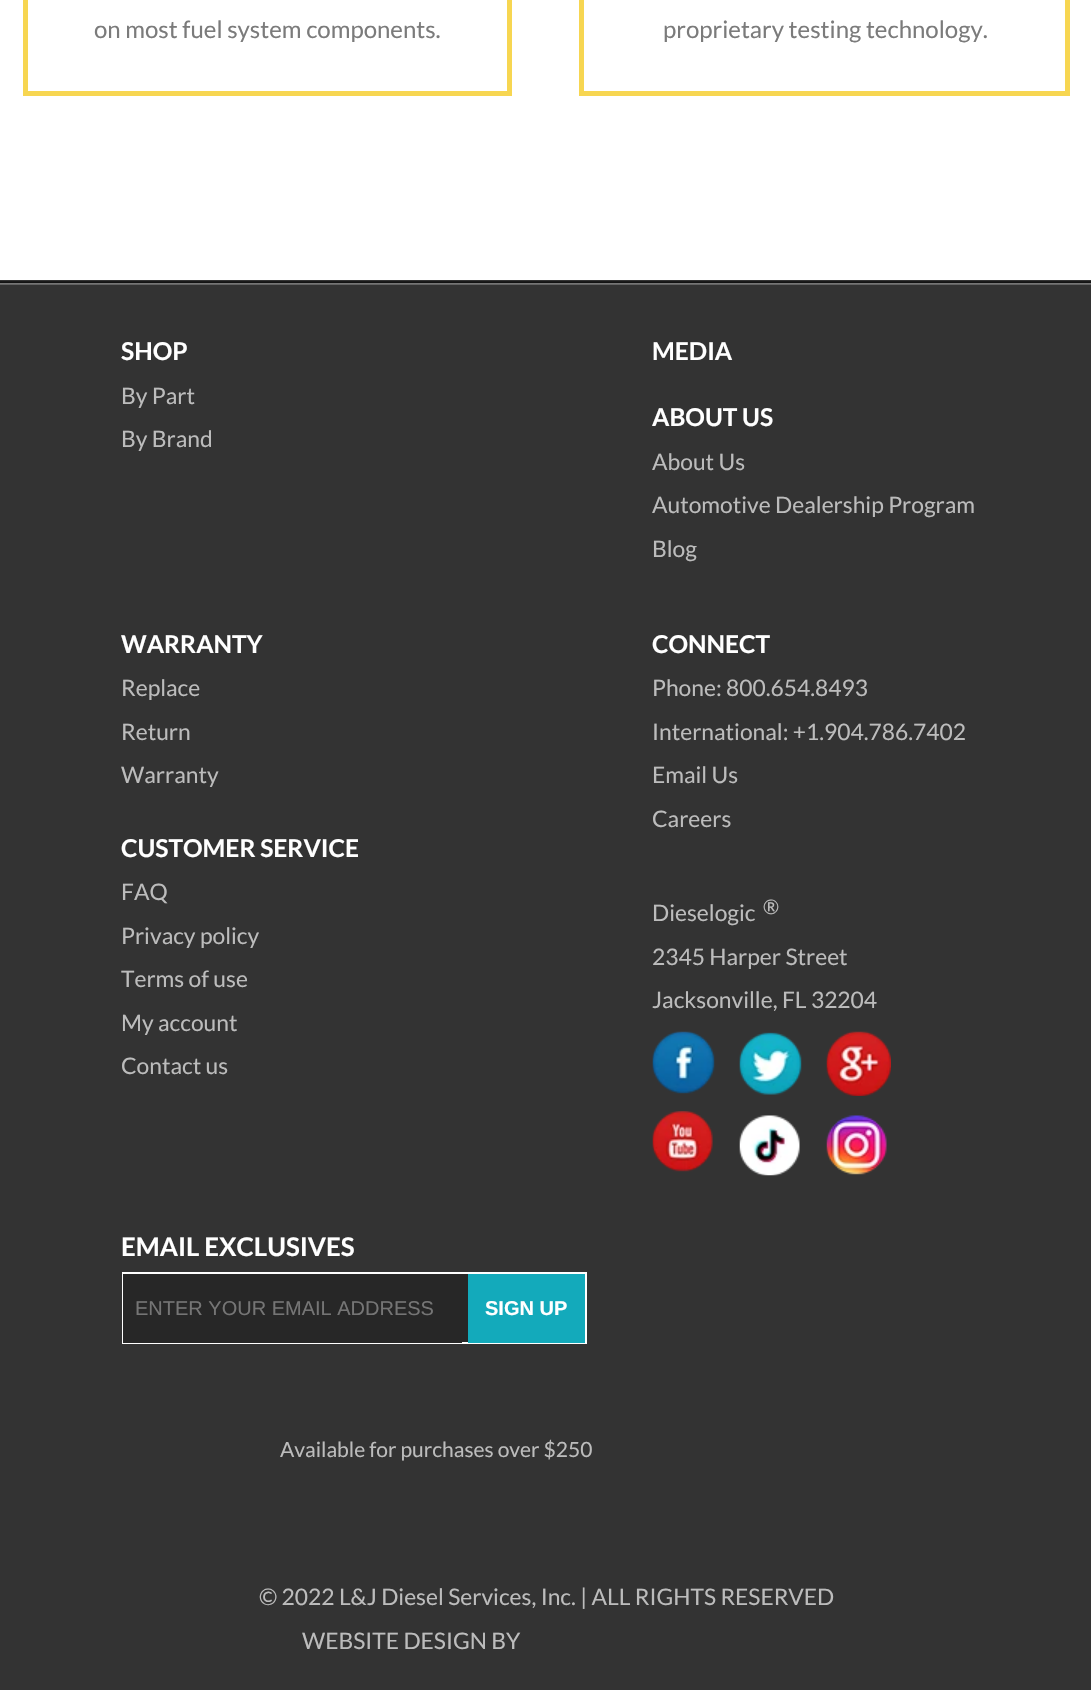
void draw(SkCanvas* canvas) {
	SkPaint fill;
	fill.setAntiAlias(true);
	auto makeFont = [&](const char* family, int weight, float size, bool italic = false) {
		SkFontStyle style(weight, SkFontStyle::kNormal_Width,
			italic ? SkFontStyle::kItalic_Slant : SkFontStyle::kUpright_Slant);
		SkFont result(fontMgr->matchFamilyStyle(family, style), size);
		result.setSubpixel(true);
		return result;
	};
	auto text = [&](const char* s, float x, float y, const SkFont& font) {
		canvas->drawString(s, x, y, font, fill);
	};
	auto box = [&](float l, float t, float r, float b) {
		canvas->drawRect(SkRect::MakeLTRB(l, t, r, b), fill);
	};
	auto picture = [&](const char* path, float l, float t, float r, float b) {
		auto image = SkImages::DeferredFromEncodedData(SkData::MakeFromFileName(path));
		canvas->drawImageRect(image, SkRect::MakeLTRB(l, t, r, b), SkSamplingOptions());
	};
	canvas->clear(0xFFFFFFFF);
	fill.setStyle(SkPaint::kStroke_Style);
	fill.setStrokeWidth(5);
	fill.setColor(0xFFF7D651);
	canvas->drawRect(SkRect::MakeLTRB(25.5f, -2.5f, 509.5f, 93.5f), fill);
	canvas->drawRect(SkRect::MakeLTRB(581.5f, -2.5f, 1067.5f, 93.5f), fill);
	fill.setStyle(SkPaint::kFill_Style);
	fill.setColor(0xFF333333);
	box(0, 284, 1091, 1690);
	picture("image0.png", 0, 280, 1091, 285);
	picture("image1.png", 652, 1031, 715, 1094);
	picture("image2.png", 739, 1032, 802, 1095);
	picture("image3.png", 826, 1031, 891, 1096);
	picture("image4.png", 652, 1111, 713, 1172);
	picture("image5.png", 739, 1115, 800, 1176);
	picture("image6.png", 826, 1115, 887, 1175);
	fill.setColor(0xFF272727);
	box(462, 1274, 468, 1342);
	fill.setStyle(SkPaint::kStroke_Style);
	fill.setStrokeWidth(2);
	fill.setColor(0xFFFFFFFF);
	canvas->drawRect(SkRect::MakeLTRB(123, 1273, 586, 1343), fill);
	fill.setStyle(SkPaint::kFill_Style);
	fill.setColor(0xFF272727);
	box(123, 1274, 462, 1343);
	fill.setColor(0xFF13AABB);
	box(468, 1274, 585, 1343);
	auto font1 = makeFont("Lato", 400, 24);
	fill.setColor(0xFF7B7B7B);
	text("on most fuel system components.", 94, 38, font1);
	text("proprietary testing technology.", 663, 38, font1);
	auto font2 = makeFont("Lato", 700, 24.5f);
	fill.setColor(0xFFFFFFFF);
	text("SHOP", 121, 360, font2);
	auto font3 = makeFont("Lato", 400, 22.8f);
	fill.setColor(0xFFBCBCBC);
	text("By Part", 121, 404, font3);
	text("By Brand", 121, 447, font3);
	fill.setColor(0xFFFFFFFF);
	text("MEDIA", 652, 360, font2);
	text("ABOUT US", 652, 426, font2);
	fill.setColor(0xFFBCBCBC);
	text("About Us", 652, 470, font3);
	text("Automotive Dealership Program", 652, 513, font3);
	text("Blog", 652, 557, font3);
	fill.setColor(0xFFFFFFFF);
	text("WARRANTY", 121, 653, font2);
	fill.setColor(0xFFBCBCBC);
	text("Replace", 121, 696, font3);
	text("Return", 121, 740, font3);
	text("Warranty", 121, 783, font3);
	fill.setColor(0xFFFFFFFF);
	text("CUSTOMER SERVICE", 121, 857, font2);
	fill.setColor(0xFFBCBCBC);
	text("FAQ", 121, 900, font3);
	text("Privacy policy", 121, 944, font3);
	text("Terms of use", 121, 987, font3);
	text("My account", 121, 1031, font3);
	text("Contact us", 121, 1074, font3);
	fill.setColor(0xFFFFFFFF);
	text("CONNECT", 652, 653, font2);
	fill.setColor(0xFFBCBCBC);
	text("Phone: 800.654.8493", 652, 696, font3);
	text("International: +1.904.786.7402", 652, 740, font3);
	text("Email Us", 652, 783, font3);
	text("Careers", 652, 827, font3);
	text("Dieselogic", 652, 921, font3);
	auto font4 = makeFont("Lato", 400, 20);
	text("®", 763, 914, font4);
	text("2345 Harper Street", 652, 965, font3);
	text("Jacksonville, FL 32204", 652, 1008, font3);
	auto font5 = makeFont("Lato", 700, 25.75f);
	fill.setColor(0xFFFFFFFF);
	text("EMAIL EXCLUSIVES", 121, 1256, font5);
	auto font6 = makeFont("Liberation Sans", 400, 20);
	fill.setColor(0xFF757575);
	text("ENTER YOUR EMAIL ADDRESS", 135, 1315, font6);
	auto font7 = makeFont("Liberation Sans", 700, 20);
	fill.setColor(0xFFFFFFFF);
	text("SIGN UP", 485, 1315, font7);
	auto font8 = makeFont("Lato", 400, 21);
	fill.setColor(0xFFBCBCBC);
	text("Available for purchases over $250", 280, 1457, font8);
	text("© 2022 L&J Diesel Services, Inc. | ALL RIGHTS RESERVED", 259, 1605, font3);
	text("WEBSITE DESIGN BY", 302, 1649, font3);
}
